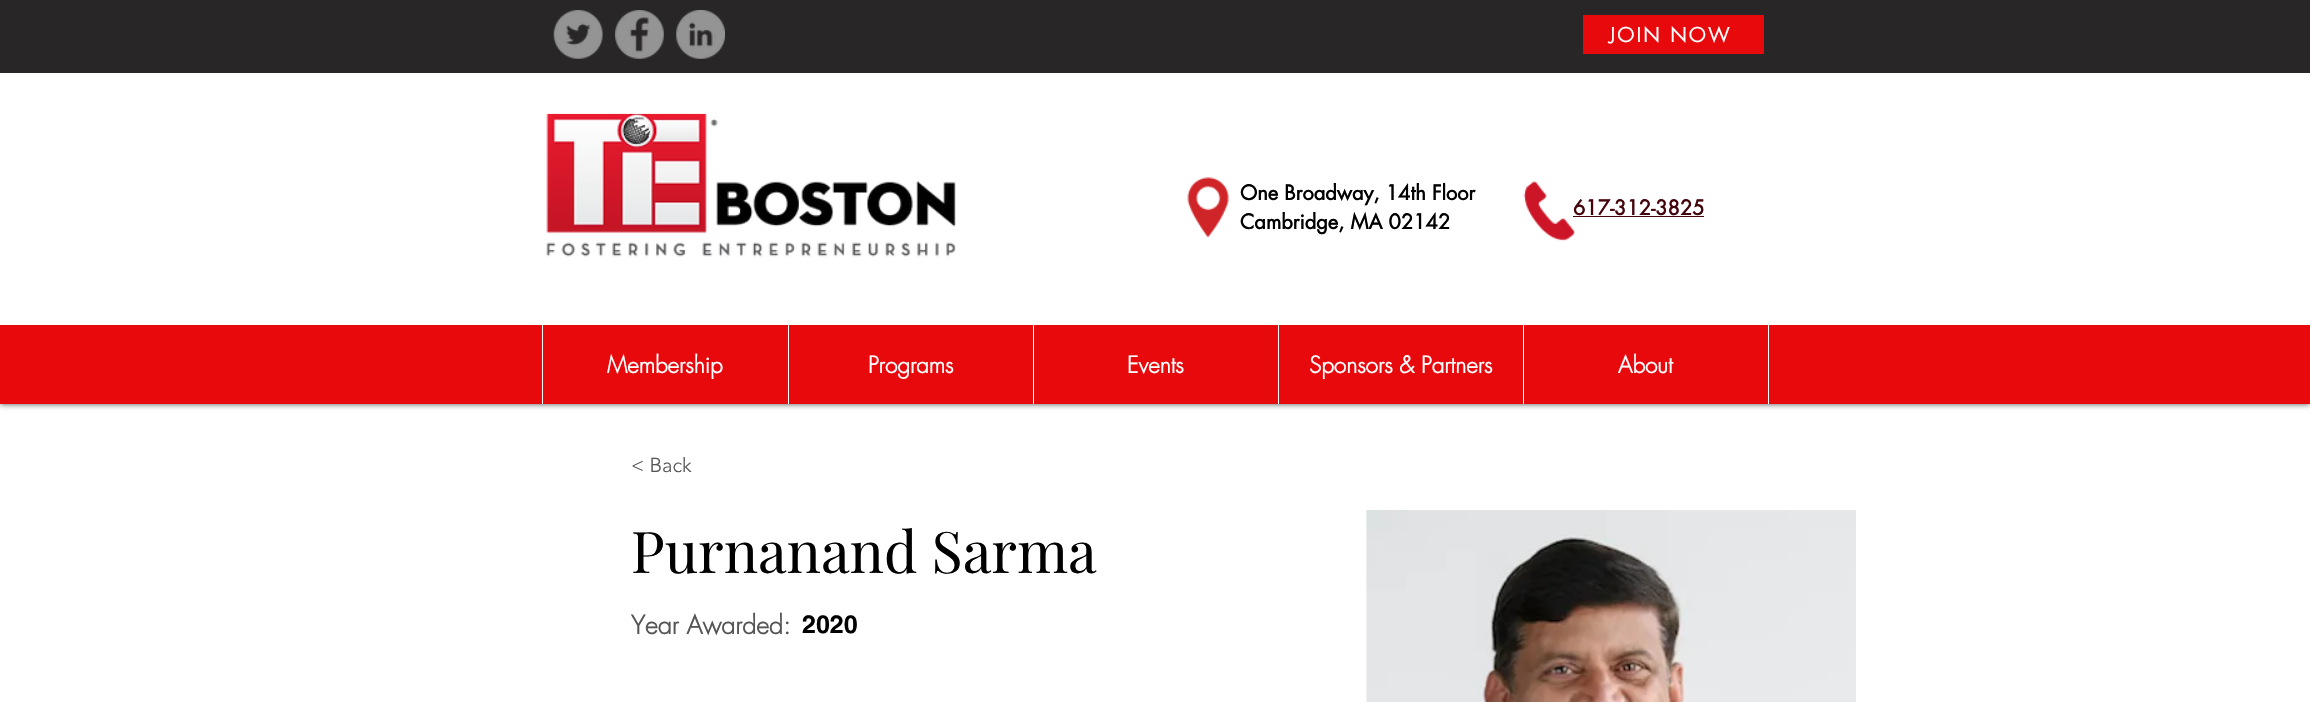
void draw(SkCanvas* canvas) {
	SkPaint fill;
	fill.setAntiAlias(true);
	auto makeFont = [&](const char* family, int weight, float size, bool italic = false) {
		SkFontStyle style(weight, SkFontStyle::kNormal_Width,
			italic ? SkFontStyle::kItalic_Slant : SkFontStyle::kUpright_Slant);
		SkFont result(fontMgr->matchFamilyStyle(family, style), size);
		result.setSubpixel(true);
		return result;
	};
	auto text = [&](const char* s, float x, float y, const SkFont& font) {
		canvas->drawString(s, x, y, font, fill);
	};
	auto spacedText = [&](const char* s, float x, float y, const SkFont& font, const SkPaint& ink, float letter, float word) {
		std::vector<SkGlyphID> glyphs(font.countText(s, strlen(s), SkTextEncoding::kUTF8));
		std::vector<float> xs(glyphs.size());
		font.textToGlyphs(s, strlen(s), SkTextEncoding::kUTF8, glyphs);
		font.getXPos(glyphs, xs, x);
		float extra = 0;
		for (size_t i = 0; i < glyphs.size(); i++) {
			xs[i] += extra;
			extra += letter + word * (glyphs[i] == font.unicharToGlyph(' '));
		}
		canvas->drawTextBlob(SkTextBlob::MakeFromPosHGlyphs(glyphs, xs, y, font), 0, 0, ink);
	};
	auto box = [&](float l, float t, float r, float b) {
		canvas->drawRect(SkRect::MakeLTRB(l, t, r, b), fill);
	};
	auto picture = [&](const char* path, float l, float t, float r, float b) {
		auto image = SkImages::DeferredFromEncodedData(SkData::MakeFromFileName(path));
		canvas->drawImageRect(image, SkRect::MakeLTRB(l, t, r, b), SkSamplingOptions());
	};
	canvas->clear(0xFFFFFFFF);
	fill.setColor(0xB3000000);
	fill.setMaskFilter(SkMaskFilter::MakeBlur(kNormal_SkBlurStyle, 3));
	canvas->drawRect(SkRect::MakeLTRB(0, 0, 2310, 404), fill);
	fill.setMaskFilter(nullptr);
	fill.setColor(0xFFFFFFFF);
	box(0, 73, 2310, 404);
	fill.setColor(0xFF282626);
	box(0, 0, 2310, 73);
	picture("image0.png", 553, 10, 603, 59);
	picture("image1.png", 615, 10, 664, 59);
	picture("image2.png", 676, 10, 725, 59);
	fill.setColor(0xFFE8090D);
	box(1583, 15, 1764, 54);
	picture("image3.png", 546, 113, 956, 257);
	picture("image4.png", 1187, 177, 1229, 238);
	picture("image5.png", 1523, 181, 1576, 241);
	fill.setColor(0xFF43040C);
	box(1573, 216, 1704, 217);
	fill.setColor(0xFFE8090D);
	box(0, 325, 542, 404);
	box(543, 325, 1768, 404);
	fill.setColor(0xFFFFFFFF);
	box(788, 325, 789, 404);
	box(1033, 325, 1034, 404);
	box(1278, 325, 1279, 404);
	box(1523, 325, 1524, 404);
	fill.setColor(0xFFE8090D);
	box(1769, 325, 2310, 404);
	picture("image6.png", 1366, 510, 1856, 702);
	auto font1 = makeFont("futura", 400, 20);
	fill.setColor(0xFFFFFFFF);
	spacedText("JOIN NOW", 1609, 42, font1, fill, 2, 0);
	auto font2 = makeFont("futura", 700, 20);
	fill.setColor(0xFF000000);
	text("One Broadway, 14th Floor", 1240, 200, font2);
	text("Cambridge, MA 02142", 1240, 229, font2);
	fill.setColor(0xFF43040C);
	text("617-312-3825", 1573, 215, font2);
	auto font3 = makeFont("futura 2", 700, 22.5f);
	fill.setColor(0xFFFFFFFF);
	text("Membership", 607, 373, font3);
	text("Programs", 868, 373, font3);
	text("Events", 1127, 373, font3);
	text("Sponsors & Partners", 1309, 373, font3);
	text("About", 1618, 373, font3);
	auto font4 = makeFont("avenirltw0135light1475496", 300, 20);
	fill.setColor(0xFF555555);
	text("< Back", 631, 472, font4);
	auto font5 = makeFont("Playfair Display", 400, 57.5f);
	fill.setColor(0xFF000000);
	text("Purnanand Sarma", 631, 573, font5);
	auto font6 = makeFont("futura 2", 700, 25);
	fill.setColor(0xFF555555);
	text("Year Awarded:", 631, 634, font6);
	auto font7 = makeFont("helvetica", 700, 25);
	fill.setColor(0xFF000000);
	text("2020", 802, 633, font7);
}
